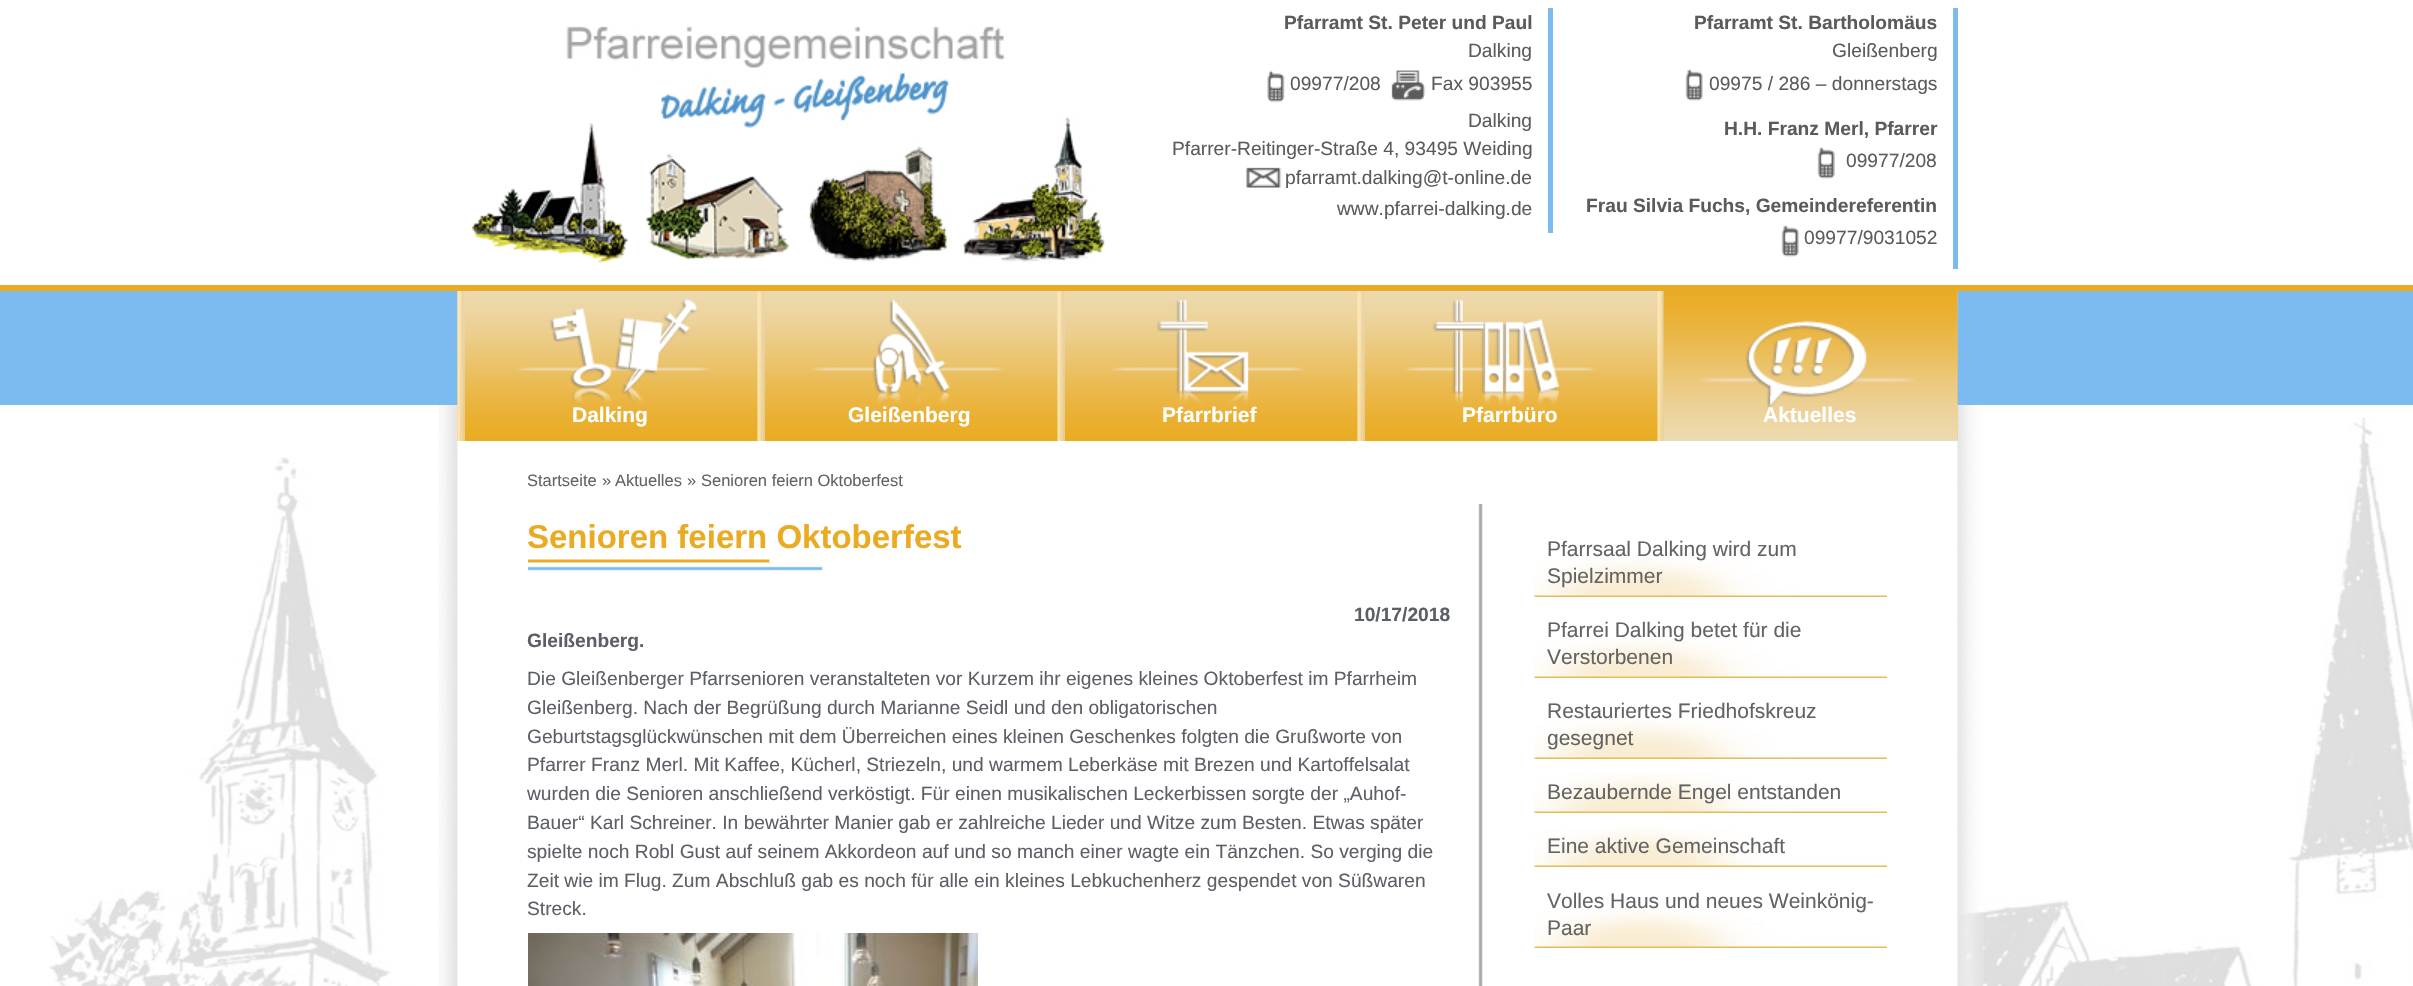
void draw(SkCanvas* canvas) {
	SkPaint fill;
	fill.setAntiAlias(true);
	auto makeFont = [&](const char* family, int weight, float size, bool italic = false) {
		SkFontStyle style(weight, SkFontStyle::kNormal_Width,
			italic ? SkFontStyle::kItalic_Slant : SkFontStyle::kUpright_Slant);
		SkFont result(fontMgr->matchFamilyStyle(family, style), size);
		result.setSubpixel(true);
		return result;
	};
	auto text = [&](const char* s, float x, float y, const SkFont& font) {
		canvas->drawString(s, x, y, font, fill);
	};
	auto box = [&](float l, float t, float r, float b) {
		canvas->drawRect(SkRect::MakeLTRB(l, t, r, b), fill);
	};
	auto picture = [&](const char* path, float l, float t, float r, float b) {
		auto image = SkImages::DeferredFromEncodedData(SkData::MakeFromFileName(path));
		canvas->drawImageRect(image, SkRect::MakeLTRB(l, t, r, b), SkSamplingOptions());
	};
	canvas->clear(0xFFFFFFFF);
	picture("image0.png", 49, 417, 2413, 986);
	picture("image1.png", 472, 26, 1105, 263);
	fill.setColor(0xFF7CBBF0);
	box(1548, 8, 1553, 233);
	picture("image2.png", 1267, 70, 1285, 103);
	picture("image3.png", 1391, 70, 1426, 101);
	picture("image4.png", 1246, 167, 1282, 188);
	box(1953, 8, 1958, 269);
	picture("image5.png", 1685, 69, 1703, 101);
	picture("image6.png", 1817, 147, 1835, 179);
	picture("image5.png", 1781, 225, 1799, 257);
	picture("image7.png", 438, 405, 1984, 986);
	picture("image8.png", 0, 285, 2413, 405);
	picture("image9.png", 457, 291, 1958, 441);
	picture("image10.png", 457, 291, 465, 441);
	picture("image11.png", 516, 299, 712, 404);
	picture("image12.png", 757, 291, 765, 441);
	picture("image13.png", 810, 299, 1006, 404);
	picture("image12.png", 1057, 291, 1065, 441);
	picture("image14.png", 1110, 299, 1306, 405);
	picture("image12.png", 1357, 291, 1365, 441);
	picture("image15.png", 1403, 299, 1598, 405);
	picture("image16.png", 1657, 291, 1664, 441);
	picture("image17.png", 1663, 291, 1958, 441);
	picture("image18.png", 1698, 320, 1917, 408);
	picture("image19.png", 1478, 504, 1483, 986);
	picture("image20.png", 528, 559, 824, 571);
	picture("image21.png", 528, 933, 978, 986);
	picture("image22.png", 1534, 557, 1887, 597);
	picture("image22.png", 1534, 638, 1887, 678);
	picture("image22.png", 1534, 719, 1887, 759);
	picture("image22.png", 1534, 773, 1887, 813);
	picture("image22.png", 1534, 827, 1887, 867);
	picture("image22.png", 1534, 908, 1887, 948);
	auto font1 = makeFont("Liberation Sans", 700, 19.2f);
	fill.setColor(0xFF5B5B5B);
	text("Pfarramt St. Peter und Paul", 1284, 29, font1);
	auto font2 = makeFont("Liberation Sans", 400, 19.2f);
	text("Dalking", 1468, 57, font2);
	text("09977/208", 1290, 90, font2);
	text("Fax 903955", 1431, 90, font2);
	text("Dalking", 1468, 127, font2);
	text("Pfarrer-Reitinger-Straße 4, 93495 Weiding", 1172, 155, font2);
	text("pfarramt.dalking@t-online.de", 1285, 184, font2);
	text("www.pfarrei-dalking.de", 1337, 215, font2);
	text("Pfarramt St. Bartholomäus", 1694, 29, font1);
	text("Gleißenberg", 1832, 57, font2);
	text("09975 / 286 – donnerstags", 1709, 90, font2);
	text("H.H. Franz Merl, Pfarrer", 1724, 135, font1);
	text("09977/208", 1846, 167, font2);
	text("Frau Silvia Fuchs, Gemeindereferentin", 1586, 212, font1);
	text("09977/9031052", 1804, 244, font2);
	auto font3 = makeFont("Liberation Sans", 700, 21);
	fill.setColor(0xFFFFFFFF);
	text("Dalking", 572, 422, font3);
	text("Gleißenberg", 848, 422, font3);
	text("Pfarrbrief", 1162, 422, font3);
	text("Pfarrbüro", 1462, 422, font3);
	text("Aktuelles", 1763, 422, font3);
	auto font4 = makeFont("Liberation Sans", 400, 16.5f);
	fill.setColor(0xFF636363);
	text("Startseite", 527, 486, font4);
	fill.setColor(0xFF5C5F66);
	text("»", 602, 486, font4);
	fill.setColor(0xFF636363);
	text("Aktuelles", 615, 486, font4);
	fill.setColor(0xFF5C5F66);
	text("»", 687, 486, font4);
	fill.setColor(0xFF636363);
	text("Senioren feiern Oktoberfest", 701, 486, font4);
	auto font5 = makeFont("Liberation Sans", 700, 33);
	fill.setColor(0xFFEAAB23);
	text("Senioren feiern Oktoberfest", 527, 548, font5);
	fill.setColor(0xFF5C5F66);
	text("10/17/2018", 1354, 621, font1);
	text("Gleißenberg.", 527, 647, font1);
	text("Die Gleißenberger Pfarrsenioren veranstalteten vor Kurzem ihr eigenes kleines Oktoberfest im Pfarrheim", 527, 685, font2);
	text("Gleißenberg. Nach der Begrüßung durch Marianne Seidl und den obligatorischen", 527, 714, font2);
	text("Geburtstagsglückwünschen mit dem Überreichen eines kleinen Geschenkes folgten die Grußworte von", 527, 743, font2);
	text("Pfarrer Franz Merl. Mit Kaffee, Kücherl, Striezeln, und warmem Leberkäse mit Brezen und Kartoffelsalat", 527, 771, font2);
	text("wurden die Senioren anschließend verköstigt. Für einen musikalischen Leckerbissen sorgte der „Auhof-", 527, 800, font2);
	text("Bauer“ Karl Schreiner. In bewährter Manier gab er zahlreiche Lieder und Witze zum Besten. Etwas später", 527, 829, font2);
	text("spielte noch Robl Gust auf seinem Akkordeon auf und so manch einer wagte ein Tänzchen. So verging die", 527, 858, font2);
	text("Zeit wie im Flug. Zum Abschluß gab es noch für alle ein kleines Lebkuchenherz gespendet von Süßwaren", 527, 887, font2);
	text("Streck.", 527, 915, font2);
	auto font6 = makeFont("Liberation Sans", 400, 21);
	fill.setColor(0xFF636363);
	text("Pfarrsaal Dalking wird zum", 1547, 556, font6);
	text("Spielzimmer", 1547, 583, font6);
	text("Pfarrei Dalking betet für die", 1547, 637, font6);
	text("Verstorbenen", 1547, 664, font6);
	text("Restauriertes Friedhofskreuz", 1547, 718, font6);
	text("gesegnet", 1547, 745, font6);
	text("Bezaubernde Engel entstanden", 1547, 799, font6);
	text("Eine aktive Gemeinschaft", 1547, 853, font6);
	text("Volles Haus und neues Weinkönig-", 1547, 908, font6);
	text("Paar", 1547, 935, font6);
}
